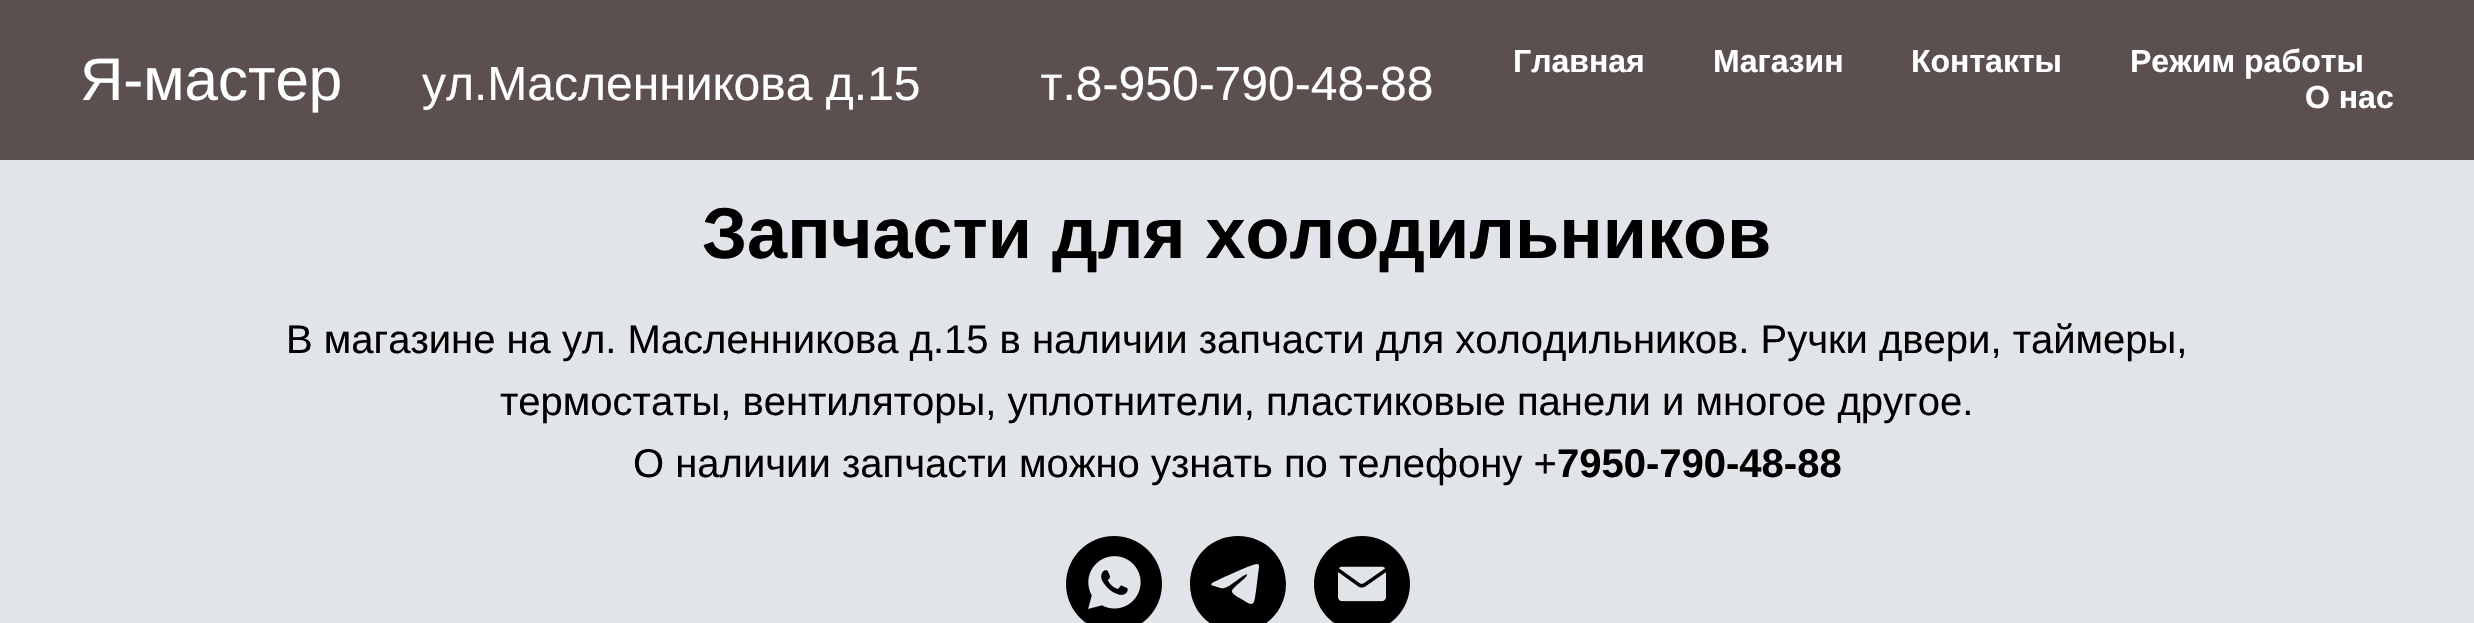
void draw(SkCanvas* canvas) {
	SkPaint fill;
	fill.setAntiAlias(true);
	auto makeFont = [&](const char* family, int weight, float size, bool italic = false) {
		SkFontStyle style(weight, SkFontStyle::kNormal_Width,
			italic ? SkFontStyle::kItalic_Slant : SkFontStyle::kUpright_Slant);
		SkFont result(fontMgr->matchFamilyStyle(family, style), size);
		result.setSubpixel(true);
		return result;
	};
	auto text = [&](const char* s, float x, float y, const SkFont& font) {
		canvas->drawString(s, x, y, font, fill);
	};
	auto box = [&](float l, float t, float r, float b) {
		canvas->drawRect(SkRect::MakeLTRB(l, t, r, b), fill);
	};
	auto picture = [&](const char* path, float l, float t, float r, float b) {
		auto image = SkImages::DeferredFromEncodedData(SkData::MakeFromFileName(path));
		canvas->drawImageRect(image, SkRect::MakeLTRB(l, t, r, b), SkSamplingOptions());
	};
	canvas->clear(0xFFE1E4E8);
	fill.setColor(0xFF5C4F4F);
	box(0, 0, 2474, 160);
	picture("image0.png", 1066, 536, 1162, 623);
	fill.setColor(0xFF000000);
	canvas->drawPath(SkPathBuilder(SkPathFillType::kEvenOdd).moveTo(1238, 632).cubicTo(1265, 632, 1286, 611, 1286, 584).cubicTo(1286, 557, 1265, 536, 1238, 536).cubicTo(1211, 536, 1190, 557, 1190, 584).cubicTo(1190, 611, 1211, 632, 1238, 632).close().moveTo(1259, 567).cubicTo(1259, 565, 1259, 564, 1257, 564).cubicTo(1254, 563, 1213, 582, 1212, 583).lineTo(1211, 585).lineTo(1214, 586).cubicTo(1221, 588, 1222, 590, 1229, 586).lineTo(1243, 576).lineTo(1247, 574).lineTo(1247, 575).cubicTo(1246, 579, 1231, 588, 1232, 592).cubicTo(1233, 595, 1240, 598, 1243, 600).cubicTo(1255, 608, 1254, 603, 1256, 591).close().detach(), fill);
	picture("image1.png", 1314, 536, 1410, 623);
	auto font1 = makeFont("Liberation Sans", 400, 60);
	fill.setColor(0xFFFFFFFF);
	text("Я-мастер", 80, 100, font1);
	auto font2 = makeFont("Liberation Sans", 400, 48);
	text("ул.Масленникова д.15         т.8-950-790-48-88", 422, 100, font2);
	auto font3 = makeFont("Liberation Sans", 700, 32);
	text("Главная", 1513, 72, font3);
	text("Магазин", 1713, 72, font3);
	text("Контакты", 1911, 72, font3);
	text("Режим работы", 2130, 72, font3);
	text("О нас", 2305, 108, font3);
	auto font4 = makeFont("Liberation Sans", 700, 72);
	fill.setColor(0xFF000000);
	text("Запчасти для холодильников", 702, 258, font4);
	auto font5 = makeFont("Liberation Sans", 400, 40);
	text("В магазине на ул. Масленникова д.15 в наличии запчасти для холодильников. Ручки двери, таймеры,", 286, 353, font5);
	text("термостаты, вентиляторы, уплотнители, пластиковые панели и многое другое.", 500, 415, font5);
	text("О наличии запчасти можно узнать по телефону +", 633, 477, font5);
	auto font6 = makeFont("Liberation Sans", 700, 40);
	text("7950-790-48-88", 1557, 477, font6);
}
